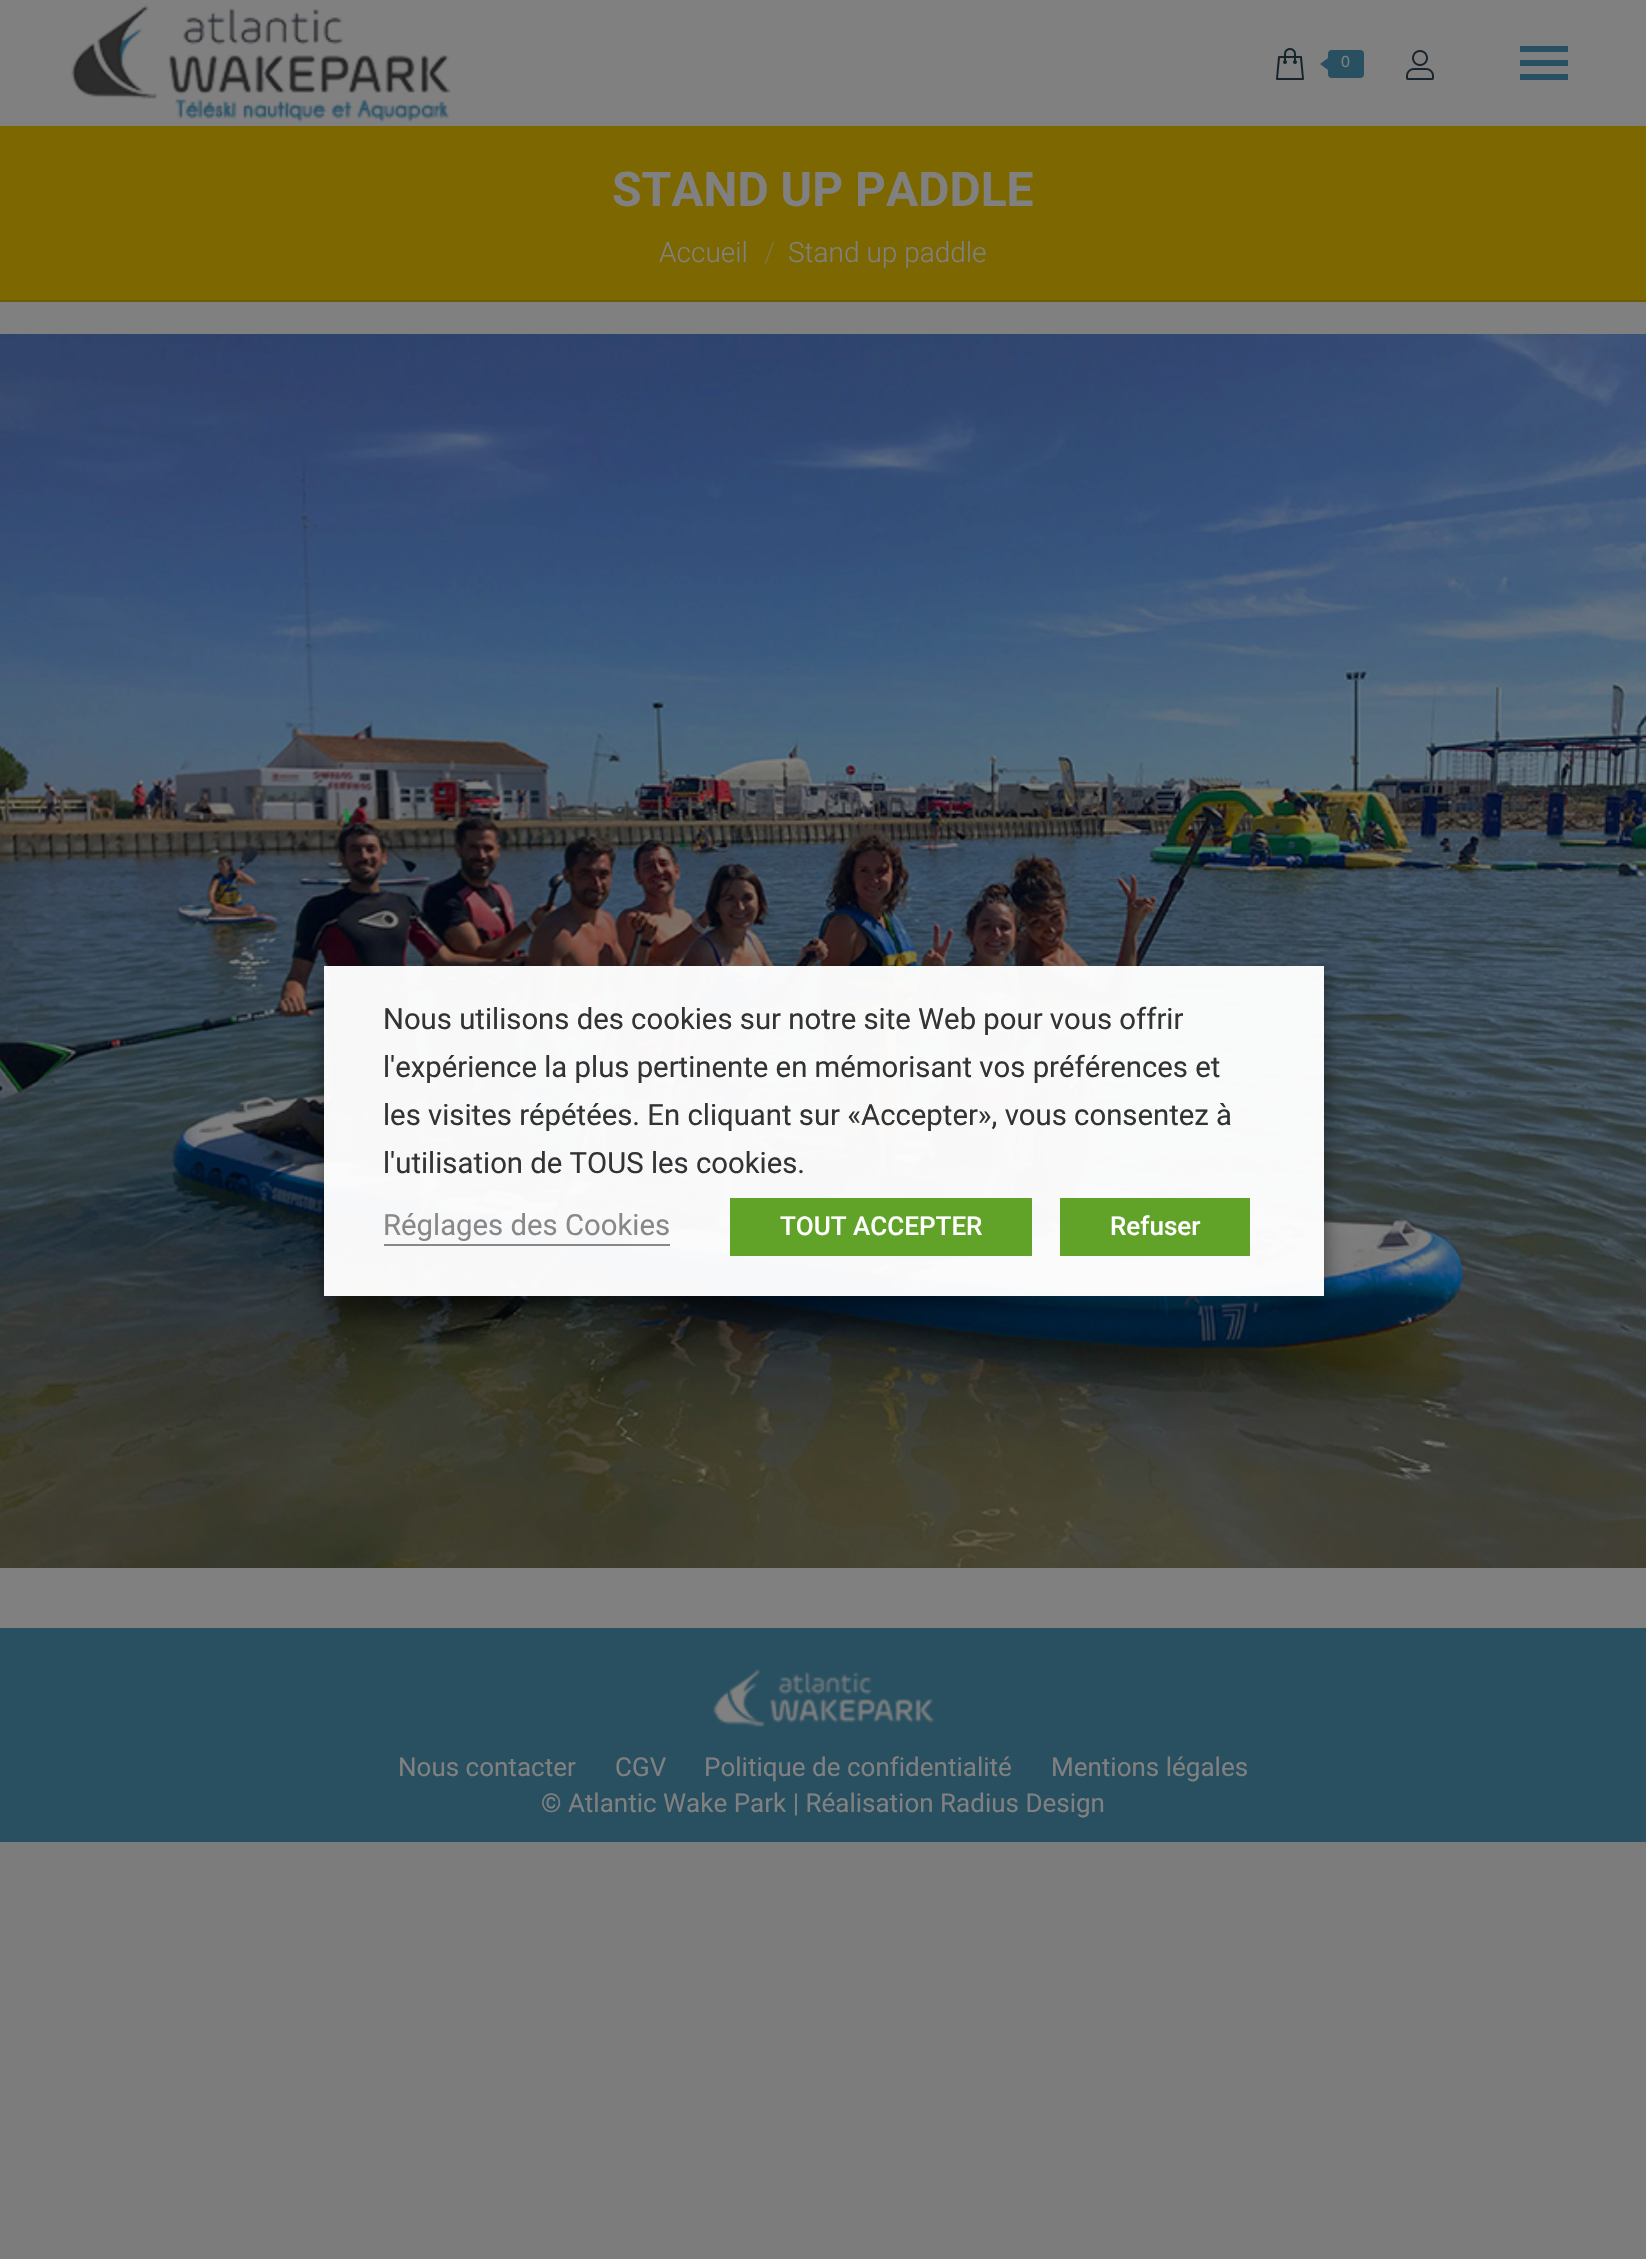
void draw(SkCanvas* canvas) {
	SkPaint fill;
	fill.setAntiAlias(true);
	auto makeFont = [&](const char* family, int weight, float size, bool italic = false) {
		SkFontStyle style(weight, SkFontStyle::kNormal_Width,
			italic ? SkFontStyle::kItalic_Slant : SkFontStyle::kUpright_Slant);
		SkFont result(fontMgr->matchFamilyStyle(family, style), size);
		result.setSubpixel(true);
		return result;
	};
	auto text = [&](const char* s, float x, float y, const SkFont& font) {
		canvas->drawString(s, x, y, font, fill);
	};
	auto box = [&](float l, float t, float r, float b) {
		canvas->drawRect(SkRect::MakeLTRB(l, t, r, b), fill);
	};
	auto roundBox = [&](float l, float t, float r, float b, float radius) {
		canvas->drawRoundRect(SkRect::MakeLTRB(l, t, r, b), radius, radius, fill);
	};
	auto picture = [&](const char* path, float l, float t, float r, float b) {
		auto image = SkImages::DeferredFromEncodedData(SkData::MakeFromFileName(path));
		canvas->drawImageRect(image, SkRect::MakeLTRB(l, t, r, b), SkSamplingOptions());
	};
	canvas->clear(0xFF7C7C7C);
	fill.setColor(0xFF808080);
	box(0, 0, 1646, 1628);
	picture("image0.png", 71, 5, 451, 123);
	picture("image1.png", 1276, 48, 1304, 80);
	fill.setColor(0xFF285061);
	roundBox(1328, 50, 1364, 78, 4);
	canvas->drawPath(SkPathBuilder().moveTo(1328, 58).lineTo(1328, 70).lineTo(1320, 64).close().detach(), fill);
	picture("image2.png", 1406, 50, 1434, 80);
	box(1520, 46, 1568, 52);
	box(1520, 60, 1568, 66);
	box(1520, 74, 1568, 80);
	fill.setColor(0xFF7D6700);
	box(0, 126, 1646, 300);
	fill.setColor(0xFF695909);
	box(0, 300, 1646, 302);
	picture("image3.png", 0, 334, 1646, 1568);
	fill.setColor(0xFF285061);
	box(0, 1628, 1646, 1842);
	picture("image4.png", 713, 1669, 935, 1727);
	canvas->save();
	canvas->clipPath(SkPathBuilder(SkPathFillType::kEvenOdd).moveTo(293, 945).lineTo(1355, 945).lineTo(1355, 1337).lineTo(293, 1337).close().moveTo(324, 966).lineTo(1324, 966).lineTo(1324, 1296).lineTo(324, 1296).close().detach(), true);
	fill.setColor(0x80000000);
	fill.setMaskFilter(SkMaskFilter::MakeBlur(kNormal_SkBlurStyle, 10));
	canvas->drawRect(SkRect::MakeLTRB(324, 976, 1324, 1306), fill);
	fill.setMaskFilter(nullptr);
	canvas->restore();
	fill.setColor(0xF7FFFFFF);
	box(324, 966, 1324, 1296);
	fill.setColor(0xFF898888);
	box(384, 1244, 670, 1246);
	fill.setColor(0xFF61A229);
	box(730, 1198, 1032, 1256);
	box(1060, 1198, 1250, 1256);
	auto font1 = makeFont("Liberation Sans", 400, 16);
	fill.setColor(0xFF808080);
	text("0", 1341, 67, font1);
	auto font2 = makeFont("Roboto", 700, 48);
	text("STAND UP PADDLE", 612, 206, font2);
	auto font3 = makeFont("Roboto", 300, 28);
	text("Accueil", 659, 262, font3);
	fill.setColor(0xFF7F7340);
	text("/", 764, 262, font3);
	fill.setColor(0xFF808080);
	text("Stand up paddle", 788, 262, font3);
	auto font4 = makeFont("Roboto", 400, 26);
	text("Nous contacter", 398, 1776, font4);
	text("CGV", 615, 1776, font4);
	text("Politique de confidentialité", 704, 1776, font4);
	text("Mentions légales", 1051, 1776, font4);
	text("© Atlantic Wake Park | Réalisation Radius Design", 541, 1812, font4);
	auto font5 = makeFont("Roboto", 400, 29.3f);
	fill.setColor(0xFF333333);
	text("Nous utilisons des cookies sur notre site Web pour vous offrir", 383, 1029, font5);
	text("l'expérience la plus pertinente en mémorisant vos préférences et", 383, 1077, font5);
	text("les visites répétées. En cliquant sur «Accepter», vous consentez à", 383, 1125, font5);
	text("l'utilisation de TOUS les cookies.", 383, 1173, font5);
	fill.setColor(0xFF898888);
	text("Réglages des Cookies", 383, 1235, font5);
	auto font6 = makeFont("Roboto", 500, 26);
	fill.setColor(0xFFFFFFFF);
	text("TOUT ACCEPTER", 780, 1235, font6);
	text("Refuser", 1110, 1235, font6);
}
